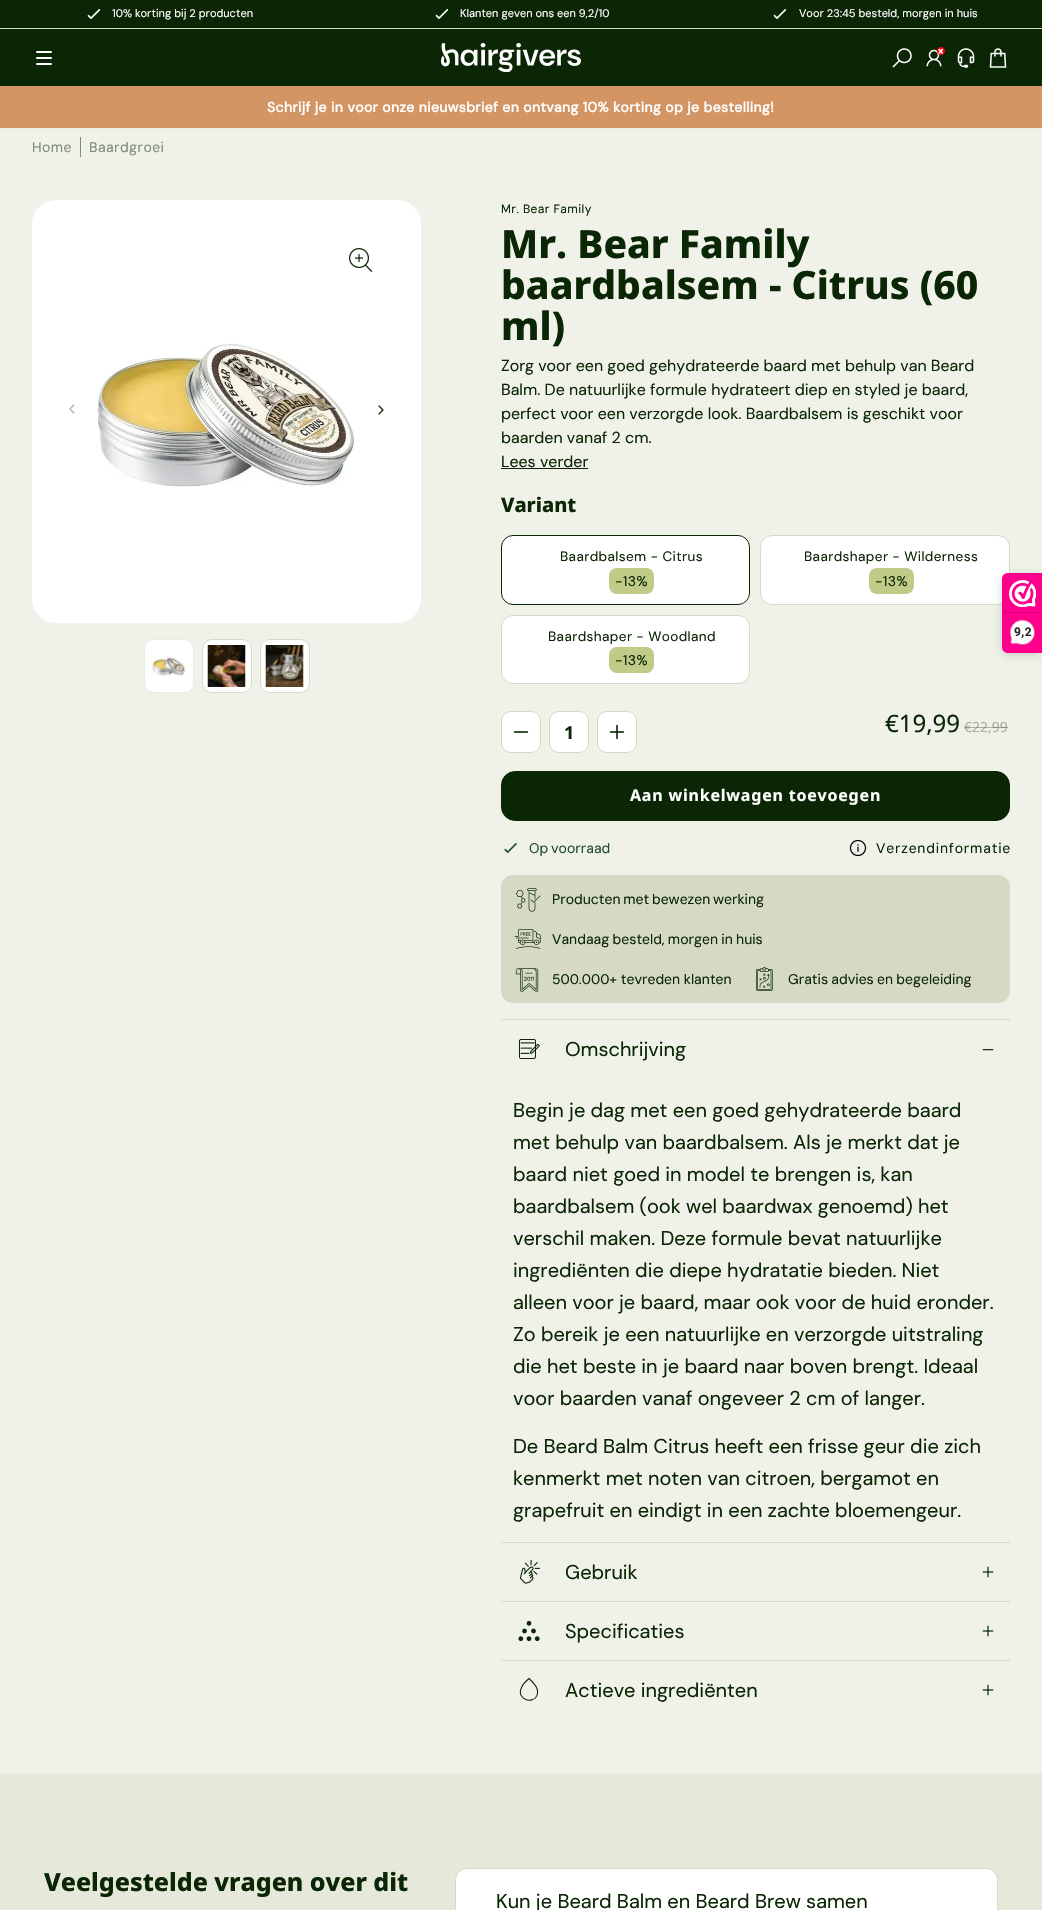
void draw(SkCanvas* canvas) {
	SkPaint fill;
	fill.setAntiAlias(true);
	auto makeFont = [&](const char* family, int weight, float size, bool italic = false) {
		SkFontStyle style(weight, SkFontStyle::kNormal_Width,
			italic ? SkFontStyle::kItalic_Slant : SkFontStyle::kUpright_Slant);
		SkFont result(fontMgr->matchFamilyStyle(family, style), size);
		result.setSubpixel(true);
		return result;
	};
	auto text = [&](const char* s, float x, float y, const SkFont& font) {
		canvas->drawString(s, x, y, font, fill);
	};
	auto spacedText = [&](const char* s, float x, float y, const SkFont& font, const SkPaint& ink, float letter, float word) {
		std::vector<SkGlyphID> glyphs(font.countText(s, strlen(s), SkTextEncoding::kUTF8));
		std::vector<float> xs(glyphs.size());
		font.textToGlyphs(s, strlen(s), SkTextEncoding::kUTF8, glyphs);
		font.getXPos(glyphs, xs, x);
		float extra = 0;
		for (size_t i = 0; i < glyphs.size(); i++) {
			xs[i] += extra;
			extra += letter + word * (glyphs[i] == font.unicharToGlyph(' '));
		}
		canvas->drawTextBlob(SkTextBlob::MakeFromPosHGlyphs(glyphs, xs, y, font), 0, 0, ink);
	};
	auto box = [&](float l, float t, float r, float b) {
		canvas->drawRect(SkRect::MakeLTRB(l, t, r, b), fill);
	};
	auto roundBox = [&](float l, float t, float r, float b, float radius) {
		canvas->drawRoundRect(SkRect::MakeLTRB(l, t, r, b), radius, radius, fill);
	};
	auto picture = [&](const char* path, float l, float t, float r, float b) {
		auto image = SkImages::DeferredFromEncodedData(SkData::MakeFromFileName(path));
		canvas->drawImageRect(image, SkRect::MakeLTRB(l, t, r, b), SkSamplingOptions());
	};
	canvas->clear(0xFFEAECE2);
	fill.setColor(0xFF0A2604);
	box(0, 0, 1042, 28);
	fill.setColor(0xFFD5D9C5);
	box(0, 28, 1042, 29);
	picture("image0.png", 87, 9, 101, 19);
	picture("image0.png", 435, 9, 449, 19);
	picture("image0.png", 773, 9, 787, 19);
	fill.setColor(0xFF0A2604);
	box(0, 29, 1042, 86);
	fill.setColor(0xFFFFFFFF);
	roundBox(36, 57, 52, 59, 1);
	roundBox(36, 51, 52, 53, 1);
	roundBox(36, 63, 52, 65, 1);
	picture("image1.png", 441, 43, 581, 72);
	picture("image2.png", 892, 48, 912, 68);
	picture("image3.png", 926, 47, 945, 67);
	picture("image4.png", 957, 48, 975, 68);
	picture("image5.png", 989, 48, 1007, 68);
	fill.setColor(0xFFD49564);
	box(0, 86, 1042, 128);
	fill.setColor(0xFFF0F2E9);
	box(0, 129, 1042, 1773);
	fill.setColor(0xFF7D8C77);
	box(80, 137, 81, 157);
	fill.setColor(0xFFFFFFFF);
	roundBox(32, 200, 421, 623, 24);
	picture("image6.png", 69, 404, 75, 414);
	picture("image7.png", 349, 248, 373, 272);
	picture("image8.png", 97, 343, 355, 487);
	picture("image9.png", 378, 405, 384, 415);
	canvas->drawRoundRect(SkRect::MakeLTRB(144.5f, 639.5f, 193.5f, 692.5f), 9.5f, 9.5f, fill);
	fill.setStyle(SkPaint::kStroke_Style);
	fill.setStrokeWidth(1);
	fill.setColor(0xFFEAECE2);
	canvas->drawRoundRect(SkRect::MakeLTRB(144.5f, 639.5f, 193.5f, 692.5f), 9.5f, 9.5f, fill);
	picture("image10.png", 152, 657, 186, 676);
	fill.setStyle(SkPaint::kFill_Style);
	fill.setColor(0xFFFFFFFF);
	canvas->drawRoundRect(SkRect::MakeLTRB(202.5f, 639.5f, 251.5f, 692.5f), 9.5f, 9.5f, fill);
	fill.setStyle(SkPaint::kStroke_Style);
	fill.setColor(0xFFD5D9C5);
	canvas->drawRoundRect(SkRect::MakeLTRB(202.5f, 639.5f, 251.5f, 692.5f), 9.5f, 9.5f, fill);
	picture("image11.png", 207, 645, 246, 687);
	fill.setStyle(SkPaint::kFill_Style);
	fill.setColor(0xFFFFFFFF);
	canvas->drawRoundRect(SkRect::MakeLTRB(260.5f, 639.5f, 309.5f, 692.5f), 9.5f, 9.5f, fill);
	fill.setStyle(SkPaint::kStroke_Style);
	fill.setColor(0xFFD5D9C5);
	canvas->drawRoundRect(SkRect::MakeLTRB(260.5f, 639.5f, 309.5f, 692.5f), 9.5f, 9.5f, fill);
	picture("image12.png", 265, 645, 304, 687);
	fill.setStyle(SkPaint::kFill_Style);
	fill.setColor(0xFF0A2604);
	box(501, 468, 588, 469);
	fill.setColor(0xFFFFFFFF);
	canvas->drawRoundRect(SkRect::MakeLTRB(501.5f, 535.5f, 749.5f, 604.5f), 11.5f, 11.5f, fill);
	fill.setStyle(SkPaint::kStroke_Style);
	fill.setColor(0xFF0A2604);
	canvas->drawRoundRect(SkRect::MakeLTRB(501.5f, 535.5f, 749.5f, 604.5f), 11.5f, 11.5f, fill);
	fill.setStyle(SkPaint::kFill_Style);
	fill.setColor(0xFFBFCB87);
	roundBox(609, 568, 654, 594, 8);
	fill.setColor(0xFFFFFFFF);
	canvas->drawRoundRect(SkRect::MakeLTRB(760.5f, 535.5f, 1009.5f, 604.5f), 11.5f, 11.5f, fill);
	fill.setStyle(SkPaint::kStroke_Style);
	fill.setColor(0xFFD5D9C5);
	canvas->drawRoundRect(SkRect::MakeLTRB(760.5f, 535.5f, 1009.5f, 604.5f), 11.5f, 11.5f, fill);
	fill.setStyle(SkPaint::kFill_Style);
	fill.setColor(0xFFBFCB87);
	roundBox(869, 568, 914, 594, 8);
	fill.setColor(0xFFFFFFFF);
	canvas->drawRoundRect(SkRect::MakeLTRB(501.5f, 615.5f, 749.5f, 683.5f), 11.5f, 11.5f, fill);
	fill.setStyle(SkPaint::kStroke_Style);
	fill.setColor(0xFFD5D9C5);
	canvas->drawRoundRect(SkRect::MakeLTRB(501.5f, 615.5f, 749.5f, 683.5f), 11.5f, 11.5f, fill);
	fill.setStyle(SkPaint::kFill_Style);
	fill.setColor(0xFFBFCB87);
	roundBox(609, 647, 654, 673, 8);
	fill.setColor(0xFFFFFFFF);
	canvas->drawRoundRect(SkRect::MakeLTRB(501.5f, 711.5f, 540.5f, 752.5f), 9.5f, 9.5f, fill);
	fill.setStyle(SkPaint::kStroke_Style);
	fill.setColor(0xFFD5D9C5);
	canvas->drawRoundRect(SkRect::MakeLTRB(501.5f, 711.5f, 540.5f, 752.5f), 9.5f, 9.5f, fill);
	picture("image13.png", 513, 731, 529, 733);
	fill.setStyle(SkPaint::kFill_Style);
	fill.setColor(0xFFFFFFFF);
	canvas->drawRoundRect(SkRect::MakeLTRB(549.5f, 711.5f, 588.5f, 752.5f), 9.5f, 9.5f, fill);
	fill.setStyle(SkPaint::kStroke_Style);
	fill.setColor(0xFFD5D9C5);
	canvas->drawRoundRect(SkRect::MakeLTRB(549.5f, 711.5f, 588.5f, 752.5f), 9.5f, 9.5f, fill);
	fill.setStyle(SkPaint::kFill_Style);
	fill.setColor(0xFFFFFFFF);
	canvas->drawRoundRect(SkRect::MakeLTRB(597.5f, 711.5f, 636.5f, 752.5f), 9.5f, 9.5f, fill);
	fill.setStyle(SkPaint::kStroke_Style);
	fill.setColor(0xFFD5D9C5);
	canvas->drawRoundRect(SkRect::MakeLTRB(597.5f, 711.5f, 636.5f, 752.5f), 9.5f, 9.5f, fill);
	picture("image14.png", 609, 724, 625, 740);
	fill.setStyle(SkPaint::kFill_Style);
	fill.setColor(0xFF0A2604);
	canvas->drawRoundRect(SkRect::MakeLTRB(501.5f, 771.5f, 1009.5f, 820.5f), 13.5f, 13.5f, fill);
	fill.setStyle(SkPaint::kStroke_Style);
	canvas->drawRoundRect(SkRect::MakeLTRB(501.5f, 771.5f, 1009.5f, 820.5f), 13.5f, 13.5f, fill);
	picture("image15.png", 504, 843, 517, 853);
	picture("image16.png", 849, 839, 867, 857);
	fill.setStyle(SkPaint::kFill_Style);
	fill.setColor(0xFFD5D9C5);
	roundBox(501, 875, 1010, 1003, 12);
	picture("image17.png", 516, 888, 541, 912);
	picture("image18.png", 514, 929, 541, 949);
	picture("image19.png", 515, 968, 539, 992);
	picture("image20.png", 756, 967, 773, 991);
	box(501, 1019, 1010, 1020);
	picture("image21.png", 519, 1039, 540, 1059);
	picture("image22.png", 982, 1049, 994, 1051);
	box(501, 1542, 1010, 1543);
	picture("image23.png", 519, 1560, 540, 1584);
	picture("image24.png", 982, 1566, 994, 1578);
	box(501, 1601, 1010, 1602);
	picture("image25.png", 518, 1620, 540, 1642);
	picture("image24.png", 982, 1625, 994, 1637);
	box(501, 1660, 1010, 1661);
	fill.setStyle(SkPaint::kStroke_Style);
	fill.setStrokeWidth(1.1f);
	fill.setColor(0xFF0A2604);
	canvas->drawPath(SkPathBuilder().moveTo(529, 1678.5f).cubicTo(506.5f, 1697, 534.5f, 1708, 537.5f, 1693.5f).cubicTo(539, 1687.5f, 533, 1682, 529, 1678.5f).close().detach(), fill);
	picture("image24.png", 982, 1684, 994, 1696);
	fill.setStyle(SkPaint::kFill_Style);
	fill.setColor(0xFFE6E8DA);
	box(0, 1773, 1042, 1910);
	fill.setColor(0xFFFFFFFF);
	canvas->drawRoundRect(SkRect::MakeLTRB(455.5f, 1868.5f, 997.5f, 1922.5f), 11.5f, 11.5f, fill);
	fill.setStyle(SkPaint::kStroke_Style);
	fill.setStrokeWidth(1);
	fill.setColor(0xFFD5D9C5);
	canvas->drawRoundRect(SkRect::MakeLTRB(455.5f, 1868.5f, 997.5f, 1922.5f), 11.5f, 11.5f, fill);
	fill.setStyle(SkPaint::kFill_Style);
	fill.setColor(0x26000000);
	fill.setMaskFilter(SkMaskFilter::MakeBlur(kNormal_SkBlurStyle, 5));
	canvas->drawRoundRect(SkRect::MakeLTRB(1002, 575, 1042, 655), 6, 6, fill);
	fill.setMaskFilter(nullptr);
	fill.setColor(0xFFFE008C);
	canvas->drawPath(SkPathBuilder().moveTo(1008, 573).lineTo(1042, 573).lineTo(1042, 653).lineTo(1008, 653).cubicTo(1004.5f, 653, 1002, 650.5f, 1002, 647).lineTo(1002, 579).cubicTo(1002, 575.5f, 1004.5f, 573, 1008, 573).close().detach(), fill);
	picture("image26.png", 1009, 580, 1036, 607);
	fill.setColor(0xFFD80077);
	box(1003, 612, 1042, 613);
	picture("image27.png", 1009, 619, 1035, 645);
	auto font1 = makeFont("DM Sans", 400, 11);
	fill.setColor(0xFFFFFFFF);
	text("10% korting bij 2 producten", 112, 17, font1);
	text("Klanten geven ons een 9,2/10", 460, 17, font1);
	text("Voor 23:45 besteld, morgen in huis", 799, 17, font1);
	auto font2 = makeFont("DM Sans", 700, 14);
	spacedText("Schrijf je in voor onze nieuwsbrief en ontvang 10% korting op je bestelling!", 267, 112, font2, fill, 0.4f, 0);
	auto font3 = makeFont("DM Sans", 400, 14);
	fill.setColor(0xFF7D8C77);
	spacedText("Home", 32, 152, font3, fill, 0.4f, 0);
	spacedText("Baardgroei", 89, 152, font3, fill, 0.4f, 0);
	auto font4 = makeFont("DM Sans", 400, 12);
	fill.setColor(0xFF0A2604);
	spacedText("Mr. Bear Family", 501, 213, font4, fill, 0.4f, 0);
	auto font5 = makeFont("Noto Sans", 800, 39);
	text("Mr. Bear Family", 501, 258, font5);
	text("baardbalsem - Citrus (60", 501, 299, font5);
	text("ml)", 501, 340, font5);
	auto font6 = makeFont("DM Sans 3", 400, 16);
	text("Zorg voor een goed gehydrateerde baard met behulp van Beard", 501, 371, font6);
	text("Balm. De natuurlijke formule hydrateert diep en styled je baard,", 501, 395, font6);
	text("perfect voor een verzorgde look. Baardbalsem is geschikt voor", 501, 419, font6);
	text("baarden vanaf 2 cm.", 501, 443, font6);
	text("Lees verder", 501, 467, font6);
	auto font7 = makeFont("Noto Sans", 800, 20);
	text("Variant", 501, 512, font7);
	auto font8 = makeFont("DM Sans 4", 400, 13.6f);
	spacedText("Baardbalsem - Citrus", 560, 561, font8, fill, 0.4f, 0);
	auto font9 = makeFont("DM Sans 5", 400, 14);
	spacedText("-13%", 615, 586, font9, fill, 0.4f, 0);
	spacedText("Baardshaper - Wilderness", 804, 561, font8, fill, 0.4f, 0);
	spacedText("-13%", 875, 586, font9, fill, 0.4f, 0);
	spacedText("Baardshaper - Woodland", 548, 641, font8, fill, 0.4f, 0);
	spacedText("-13%", 615, 665, font9, fill, 0.4f, 0);
	auto font10 = makeFont("Noto Sans", 700, 18);
	text("1", 564, 739, font10);
	auto font11 = makeFont("Noto Sans", 400, 24);
	text("€19,99", 885, 732, font11);
	auto font12 = makeFont("Noto Sans", 400, 14);
	fill.setColor(0xFFAAAFA4);
	text("€22,99", 964, 732, font12);
	fill.setColor(0x66414B3D);
	box(964, 727, 1008, 728);
	auto font13 = makeFont("Noto Sans", 700, 16);
	fill.setColor(0xFFFFFFFF);
	spacedText("Aan winkelwagen toevoegen", 630, 801, font13, fill, 0.8f, 0);
	fill.setColor(0xFF204D2F);
	spacedText("Op voorraad", 529, 853, font3, fill, 0, -1);
	fill.setColor(0xFF0A2604);
	spacedText("Verzendinformatie", 876, 853, font3, fill, 0.8f, 0);
	spacedText("Producten met bewezen werking", 552, 904, font3, fill, 0, -1);
	spacedText("Vandaag besteld, morgen in huis", 552, 944, font3, fill, 0, -0.5f);
	text("500.000+ tevreden klanten", 552, 984, font3);
	spacedText("Gratis advies en begeleiding", 788, 984, font3, fill, 0, -0.5f);
	auto font14 = makeFont("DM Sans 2", 400, 20);
	text("Omschrijving", 565, 1056, font14);
	text("Begin je dag met een goed gehydrateerde baard", 513, 1117, font14);
	text("met behulp van baardbalsem. Als je merkt dat je", 513, 1149, font14);
	text("baard niet goed in model te brengen is, kan", 513, 1181, font14);
	text("baardbalsem (ook wel baardwax genoemd) het", 513, 1213, font14);
	text("verschil maken. Deze formule bevat natuurlijke", 513, 1245, font14);
	text("ingrediënten die diepe hydratatie bieden. Niet", 513, 1277, font14);
	text("alleen voor je baard, maar ook voor de huid eronder.", 513, 1309, font14);
	text("Zo bereik je een natuurlijke en verzorgde uitstraling", 513, 1341, font14);
	text("die het beste in je baard naar boven brengt. Ideaal", 513, 1373, font14);
	text("voor baarden vanaf ongeveer 2 cm of langer.", 513, 1405, font14);
	text("De Beard Balm Citrus heeft een frisse geur die zich", 513, 1453, font14);
	text("kenmerkt met noten van citroen, bergamot en", 513, 1485, font14);
	text("grapefruit en eindigt in een zachte bloemengeur.", 513, 1517, font14);
	text("Gebruik", 565, 1579, font14);
	text("Specificaties", 565, 1638, font14);
	text("Actieve ingrediënten", 565, 1697, font14);
	auto font15 = makeFont("Noto Sans", 800, 25);
	text("Veelgestelde vragen over dit", 44, 1891, font15);
	text("Kun je Beard Balm en Beard Brew samen", 496, 1908, font14);
	auto font16 = makeFont("Roboto", 700, 12);
	fill.setColor(0xFF272626);
	spacedText("9,2", 1014, 636, font16, fill, 0.4f, 0);
}
